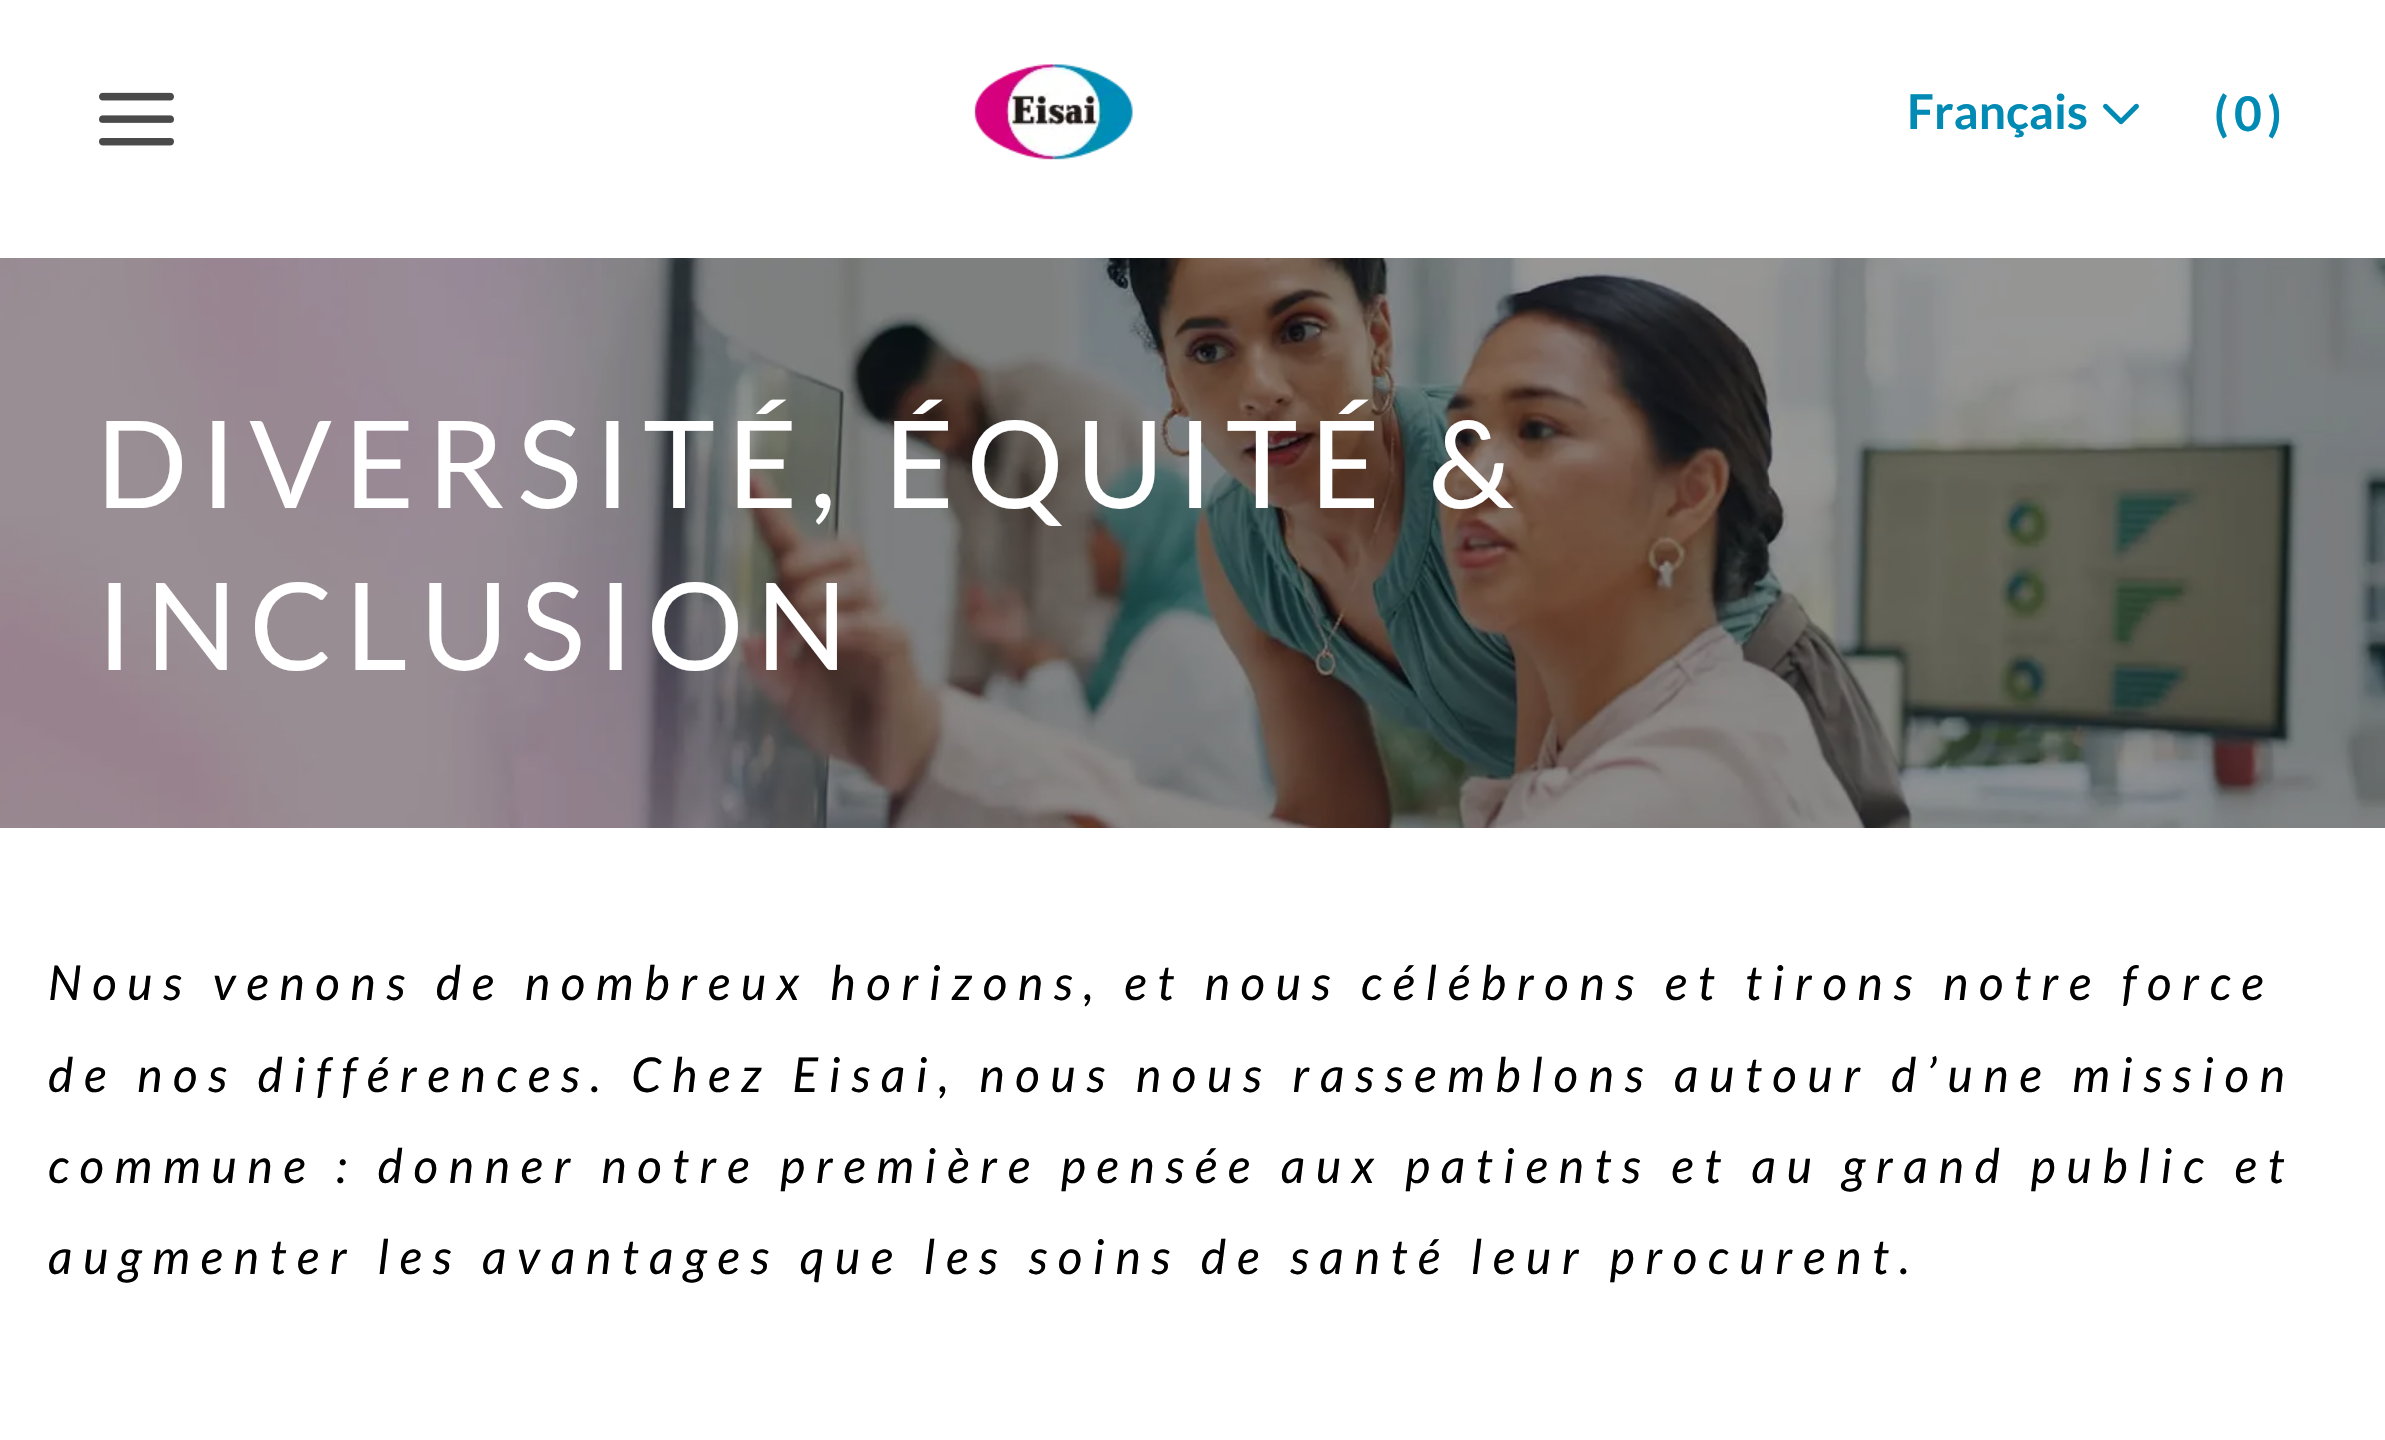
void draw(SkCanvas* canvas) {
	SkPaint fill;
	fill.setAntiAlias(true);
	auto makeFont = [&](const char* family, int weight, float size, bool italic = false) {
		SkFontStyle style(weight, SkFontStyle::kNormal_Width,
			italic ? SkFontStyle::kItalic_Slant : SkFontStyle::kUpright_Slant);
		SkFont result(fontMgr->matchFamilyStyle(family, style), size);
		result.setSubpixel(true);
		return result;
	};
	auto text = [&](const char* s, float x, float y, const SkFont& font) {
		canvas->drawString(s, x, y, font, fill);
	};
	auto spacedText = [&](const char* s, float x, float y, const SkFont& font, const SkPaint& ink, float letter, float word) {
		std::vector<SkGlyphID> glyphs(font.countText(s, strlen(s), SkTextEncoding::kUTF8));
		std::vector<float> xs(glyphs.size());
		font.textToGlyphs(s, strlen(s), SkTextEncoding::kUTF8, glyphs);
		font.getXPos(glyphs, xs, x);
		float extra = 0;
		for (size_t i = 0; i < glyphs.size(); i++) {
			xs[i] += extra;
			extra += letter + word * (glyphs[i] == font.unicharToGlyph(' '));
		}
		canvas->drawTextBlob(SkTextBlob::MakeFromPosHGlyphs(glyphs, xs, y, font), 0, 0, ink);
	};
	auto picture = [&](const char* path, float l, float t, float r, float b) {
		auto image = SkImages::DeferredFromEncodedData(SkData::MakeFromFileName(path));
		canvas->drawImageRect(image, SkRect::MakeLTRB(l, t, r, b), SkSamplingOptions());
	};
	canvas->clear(0xFFFFFFFF);
	picture("image0.png", 99, 92, 174, 146);
	picture("image1.png", 974, 64, 1133, 160);
	picture("image2.png", 2103, 103, 2139, 125);
	picture("image3.png", 0, 258, 2385, 828);
	auto font1 = makeFont("Lato", 700, 48);
	fill.setColor(0xFF008AB4);
	text("Français", 1907, 129, font1);
	spacedText("(0)", 2214, 131, font1, fill, 5.5f, 0);
	auto font2 = makeFont("Lato", 400, 121.5f);
	fill.setColor(0xFFFFFFFF);
	spacedText("DIVERSITÉ, ÉQUITÉ &", 96, 508, font2, fill, 12.2f, 0);
	spacedText("INCLUSION", 96, 670, font2, fill, 12.2f, 0);
	auto font3 = makeFont("Lato", 400, 48, true);
	fill.setColor(0xFF000000);
	spacedText("Nous venons de nombreux horizons, et nous célébrons et tirons notre force", 48, 1000, font3, fill, 10.8f, 0);
	spacedText("de nos différences. Chez Eisai, nous nous rassemblons autour d’une mission", 48, 1092, font3, fill, 10.8f, 0);
	spacedText("commune : donner notre première pensée aux patients et au grand public et", 48, 1183, font3, fill, 10.8f, 0);
	spacedText("augmenter les avantages que les soins de santé leur procurent.", 48, 1274, font3, fill, 10.8f, 0);
}
